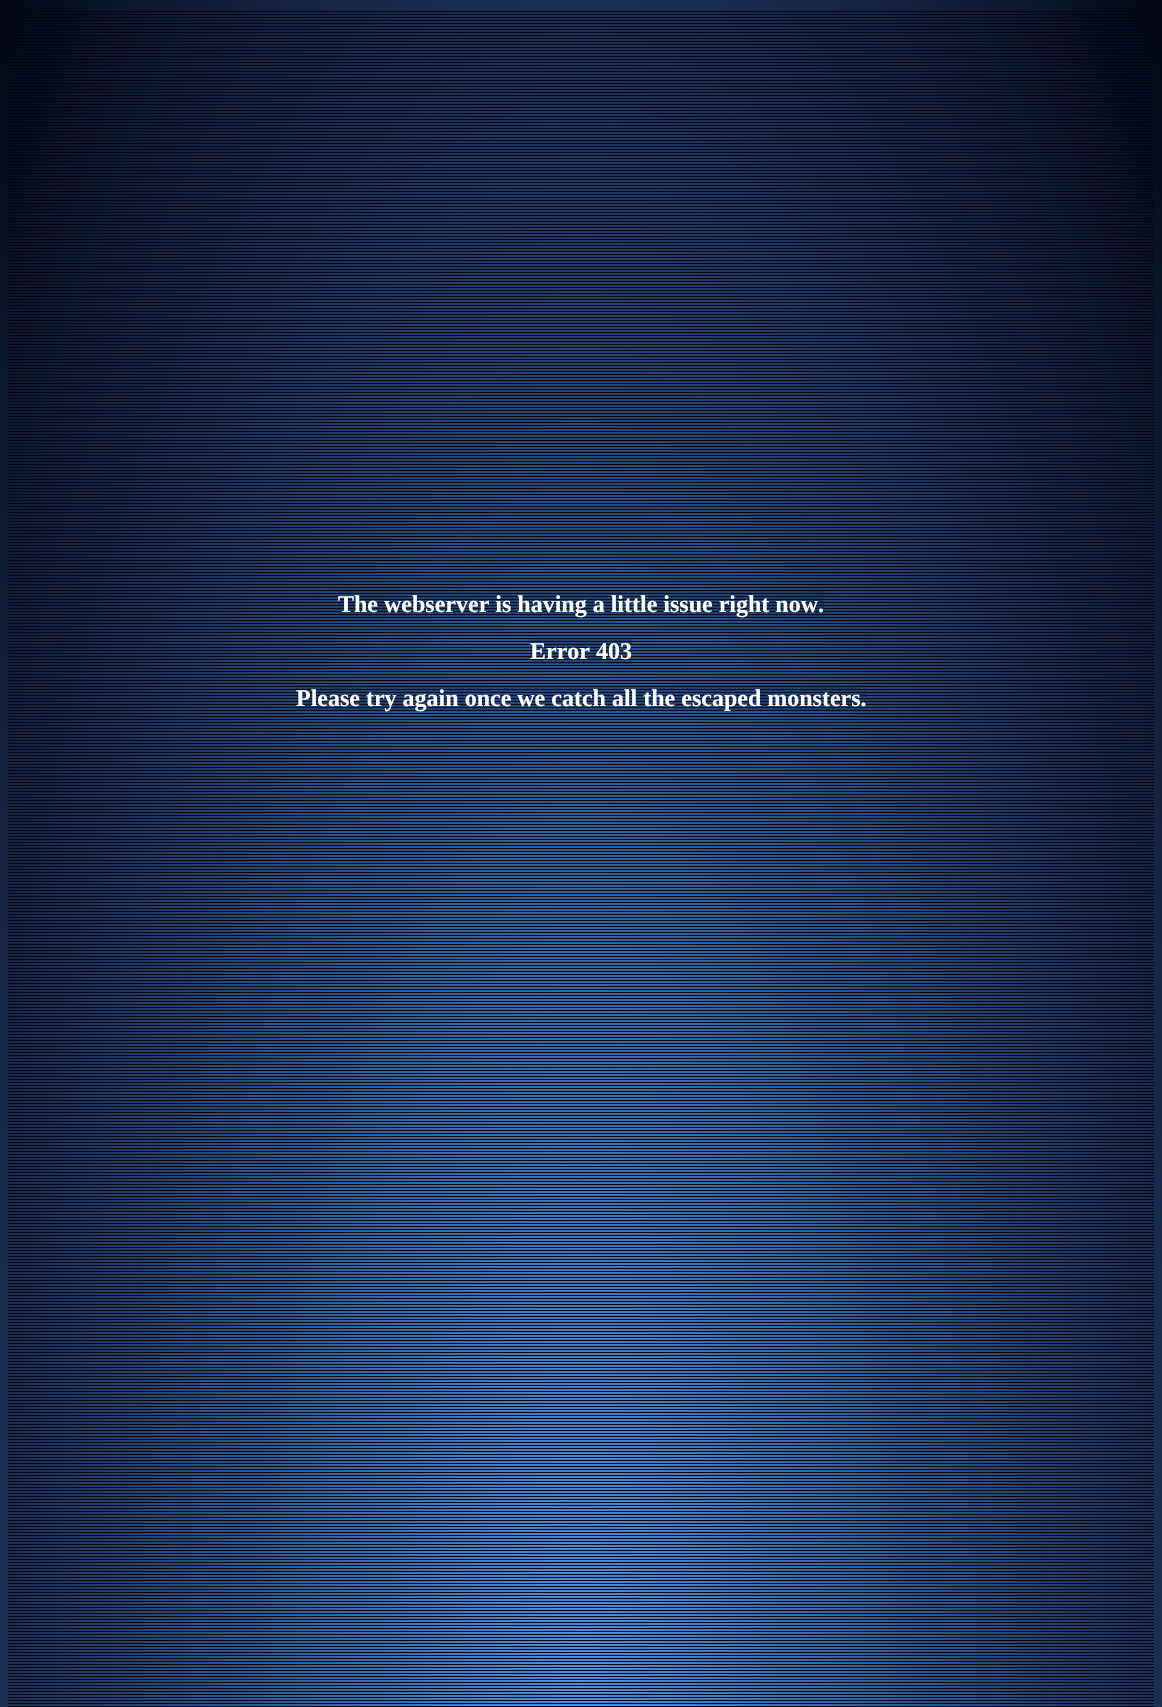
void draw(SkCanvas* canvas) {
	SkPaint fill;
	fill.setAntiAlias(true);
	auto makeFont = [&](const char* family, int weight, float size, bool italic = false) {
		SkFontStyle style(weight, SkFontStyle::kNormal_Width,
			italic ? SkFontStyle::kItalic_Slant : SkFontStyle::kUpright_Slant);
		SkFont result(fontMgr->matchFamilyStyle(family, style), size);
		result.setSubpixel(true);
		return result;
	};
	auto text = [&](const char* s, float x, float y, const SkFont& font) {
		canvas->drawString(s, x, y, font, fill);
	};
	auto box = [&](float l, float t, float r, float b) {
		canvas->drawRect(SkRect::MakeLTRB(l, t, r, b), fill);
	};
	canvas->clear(0xFFFFFFFF);
	{
		const SkColor colors[] = {0xFF5091DD, 0xFF030617};
		const float stops[] = {0, 1};
		SkMatrix m = SkMatrix::Translate(581, 1707).preScale(822, 2414);
		fill.setShader(SkGradientShader::MakeRadial({0, 0}, 1, colors, stops, 2, SkTileMode::kClamp, 0, &m));
		fill.setAlpha(255);
	}
	box(0, 0, 1162, 1707);
	{
		const SkColor colors[] = {0xFF386FAF, 0xFF020E24};
		const float stops[] = {0, 1};
		SkMatrix m = SkMatrix::Translate(581, 1707).preScale(822, 2414);
		fill.setShader(SkGradientShader::MakeRadial({0, 0}, 1, colors, stops, 2, SkTileMode::kClamp, 0, &m));
		fill.setAlpha(255);
	}
	box(296, 685, 866, 710);
	box(530, 639, 632, 664);
	box(338, 591, 824, 617);
	fill.setShader(nullptr);
	fill.setColor(0xFF030617);
	box(8, 1706, 1154, 1707);
	box(8, 1703, 1154, 1704);
	box(8, 1700, 1154, 1701);
	box(8, 1697, 1154, 1698);
	box(8, 1694, 1154, 1695);
	box(8, 1691, 1154, 1692);
	box(8, 1688, 1154, 1689);
	box(8, 1685, 1154, 1686);
	box(8, 1682, 1154, 1683);
	box(8, 1679, 1154, 1680);
	box(8, 1676, 1154, 1677);
	box(8, 1673, 1154, 1674);
	box(8, 1670, 1154, 1671);
	box(8, 1667, 1154, 1668);
	box(8, 1664, 1154, 1665);
	box(8, 1661, 1154, 1662);
	box(8, 1658, 1154, 1659);
	box(8, 1655, 1154, 1656);
	box(8, 1652, 1154, 1653);
	box(8, 1649, 1154, 1650);
	box(8, 1646, 1154, 1647);
	box(8, 1643, 1154, 1644);
	box(8, 1640, 1154, 1641);
	box(8, 1637, 1154, 1638);
	box(8, 1634, 1154, 1635);
	box(8, 1631, 1154, 1632);
	box(8, 1628, 1154, 1629);
	box(8, 1625, 1154, 1626);
	box(8, 1622, 1154, 1623);
	box(8, 1619, 1154, 1620);
	box(8, 1616, 1154, 1617);
	box(8, 1613, 1154, 1614);
	box(8, 1610, 1154, 1611);
	box(8, 1607, 1154, 1608);
	box(8, 1604, 1154, 1605);
	box(8, 1601, 1154, 1602);
	box(8, 1598, 1154, 1599);
	box(8, 1595, 1154, 1596);
	box(8, 1592, 1154, 1593);
	box(8, 1589, 1154, 1590);
	box(8, 1586, 1154, 1587);
	box(8, 1583, 1154, 1584);
	box(8, 1580, 1154, 1581);
	box(8, 1577, 1154, 1578);
	box(8, 1574, 1154, 1575);
	box(8, 1571, 1154, 1572);
	box(8, 1568, 1154, 1569);
	box(8, 1565, 1154, 1566);
	box(8, 1562, 1154, 1563);
	box(8, 1559, 1154, 1560);
	box(8, 1556, 1154, 1557);
	box(8, 1553, 1154, 1554);
	box(8, 1550, 1154, 1551);
	box(8, 1547, 1154, 1548);
	box(8, 1544, 1154, 1545);
	box(8, 1541, 1154, 1542);
	box(8, 1538, 1154, 1539);
	box(8, 1535, 1154, 1536);
	box(8, 1532, 1154, 1533);
	box(8, 1529, 1154, 1530);
	box(8, 1526, 1154, 1527);
	box(8, 1523, 1154, 1524);
	box(8, 1520, 1154, 1521);
	box(8, 1517, 1154, 1518);
	box(8, 1514, 1154, 1515);
	box(8, 1511, 1154, 1512);
	box(8, 1508, 1154, 1509);
	box(8, 1505, 1154, 1506);
	box(8, 1502, 1154, 1503);
	box(8, 1499, 1154, 1500);
	box(8, 1496, 1154, 1497);
	box(8, 1493, 1154, 1494);
	box(8, 1490, 1154, 1491);
	box(8, 1487, 1154, 1488);
	box(8, 1484, 1154, 1485);
	box(8, 1481, 1154, 1482);
	box(8, 1478, 1154, 1479);
	box(8, 1475, 1154, 1476);
	box(8, 1472, 1154, 1473);
	box(8, 1469, 1154, 1470);
	box(8, 1466, 1154, 1467);
	box(8, 1463, 1154, 1464);
	box(8, 1460, 1154, 1461);
	box(8, 1457, 1154, 1458);
	box(8, 1454, 1154, 1455);
	box(8, 1451, 1154, 1452);
	box(8, 1448, 1154, 1449);
	box(8, 1445, 1154, 1446);
	box(8, 1442, 1154, 1443);
	box(8, 1439, 1154, 1440);
	box(8, 1436, 1154, 1437);
	box(8, 1433, 1154, 1434);
	box(8, 1430, 1154, 1431);
	box(8, 1427, 1154, 1428);
	box(8, 1424, 1154, 1425);
	box(8, 1421, 1154, 1422);
	box(8, 1418, 1154, 1419);
	box(8, 1415, 1154, 1416);
	box(8, 1412, 1154, 1413);
	box(8, 1409, 1154, 1410);
	box(8, 1406, 1154, 1407);
	box(8, 1403, 1154, 1404);
	box(8, 1400, 1154, 1401);
	box(8, 1397, 1154, 1398);
	box(8, 1394, 1154, 1395);
	box(8, 1391, 1154, 1392);
	box(8, 1388, 1154, 1389);
	box(8, 1385, 1154, 1386);
	box(8, 1382, 1154, 1383);
	box(8, 1379, 1154, 1380);
	box(8, 1376, 1154, 1377);
	box(8, 1373, 1154, 1374);
	box(8, 1370, 1154, 1371);
	box(8, 1367, 1154, 1368);
	box(8, 1364, 1154, 1365);
	box(8, 1361, 1154, 1362);
	box(8, 1358, 1154, 1359);
	box(8, 1355, 1154, 1356);
	box(8, 1352, 1154, 1353);
	box(8, 1349, 1154, 1350);
	box(8, 1346, 1154, 1347);
	box(8, 1343, 1154, 1344);
	box(8, 1340, 1154, 1341);
	box(8, 1337, 1154, 1338);
	box(8, 1334, 1154, 1335);
	box(8, 1331, 1154, 1332);
	box(8, 1328, 1154, 1329);
	box(8, 1325, 1154, 1326);
	box(8, 1322, 1154, 1323);
	box(8, 1319, 1154, 1320);
	box(8, 1316, 1154, 1317);
	box(8, 1313, 1154, 1314);
	box(8, 1310, 1154, 1311);
	box(8, 1307, 1154, 1308);
	box(8, 1304, 1154, 1305);
	box(8, 1301, 1154, 1302);
	box(8, 1298, 1154, 1299);
	box(8, 1295, 1154, 1296);
	box(8, 1292, 1154, 1293);
	box(8, 1289, 1154, 1290);
	box(8, 1286, 1154, 1287);
	box(8, 1283, 1154, 1284);
	box(8, 1280, 1154, 1281);
	box(8, 1277, 1154, 1278);
	box(8, 1274, 1154, 1275);
	box(8, 1271, 1154, 1272);
	box(8, 1268, 1154, 1269);
	box(8, 1265, 1154, 1266);
	box(8, 1262, 1154, 1263);
	box(8, 1259, 1154, 1260);
	box(8, 1256, 1154, 1257);
	box(8, 1253, 1154, 1254);
	box(8, 1250, 1154, 1251);
	box(8, 1247, 1154, 1248);
	box(8, 1244, 1154, 1245);
	box(8, 1241, 1154, 1242);
	box(8, 1238, 1154, 1239);
	box(8, 1235, 1154, 1236);
	box(8, 1232, 1154, 1233);
	box(8, 1229, 1154, 1230);
	box(8, 1226, 1154, 1227);
	box(8, 1223, 1154, 1224);
	box(8, 1220, 1154, 1221);
	box(8, 1217, 1154, 1218);
	box(8, 1214, 1154, 1215);
	box(8, 1211, 1154, 1212);
	box(8, 1208, 1154, 1209);
	box(8, 1205, 1154, 1206);
	box(8, 1202, 1154, 1203);
	box(8, 1199, 1154, 1200);
	box(8, 1196, 1154, 1197);
	box(8, 1193, 1154, 1194);
	box(8, 1190, 1154, 1191);
	box(8, 1187, 1154, 1188);
	box(8, 1184, 1154, 1185);
	box(8, 1181, 1154, 1182);
	box(8, 1178, 1154, 1179);
	box(8, 1175, 1154, 1176);
	box(8, 1172, 1154, 1173);
	box(8, 1169, 1154, 1170);
	box(8, 1166, 1154, 1167);
	box(8, 1163, 1154, 1164);
	box(8, 1160, 1154, 1161);
	box(8, 1157, 1154, 1158);
	box(8, 1154, 1154, 1155);
	box(8, 1151, 1154, 1152);
	box(8, 1148, 1154, 1149);
	box(8, 1145, 1154, 1146);
	box(8, 1142, 1154, 1143);
	box(8, 1139, 1154, 1140);
	box(8, 1136, 1154, 1137);
	box(8, 1133, 1154, 1134);
	box(8, 1130, 1154, 1131);
	box(8, 1127, 1154, 1128);
	box(8, 1124, 1154, 1125);
	box(8, 1121, 1154, 1122);
	box(8, 1118, 1154, 1119);
	box(8, 1115, 1154, 1116);
	box(8, 1112, 1154, 1113);
	box(8, 1109, 1154, 1110);
	box(8, 1106, 1154, 1107);
	box(8, 1103, 1154, 1104);
	box(8, 1100, 1154, 1101);
	box(8, 1097, 1154, 1098);
	box(8, 1094, 1154, 1095);
	box(8, 1091, 1154, 1092);
	box(8, 1088, 1154, 1089);
	box(8, 1085, 1154, 1086);
	box(8, 1082, 1154, 1083);
	box(8, 1079, 1154, 1080);
	box(8, 1076, 1154, 1077);
	box(8, 1073, 1154, 1074);
	box(8, 1070, 1154, 1071);
	box(8, 1067, 1154, 1068);
	box(8, 1064, 1154, 1065);
	box(8, 1061, 1154, 1062);
	box(8, 1058, 1154, 1059);
	box(8, 1055, 1154, 1056);
	box(8, 1052, 1154, 1053);
	box(8, 1049, 1154, 1050);
	box(8, 1046, 1154, 1047);
	box(8, 1043, 1154, 1044);
	box(8, 1040, 1154, 1041);
	box(8, 1037, 1154, 1038);
	box(8, 1034, 1154, 1035);
	box(8, 1031, 1154, 1032);
	box(8, 1028, 1154, 1029);
	box(8, 1025, 1154, 1026);
	box(8, 1022, 1154, 1023);
	box(8, 1019, 1154, 1020);
	box(8, 1016, 1154, 1017);
	box(8, 1013, 1154, 1014);
	box(8, 1010, 1154, 1011);
	box(8, 1007, 1154, 1008);
	box(8, 1004, 1154, 1005);
	box(8, 1001, 1154, 1002);
	box(8, 998, 1154, 999);
	box(8, 995, 1154, 996);
	box(8, 992, 1154, 993);
	box(8, 989, 1154, 990);
	box(8, 986, 1154, 987);
	box(8, 983, 1154, 984);
	box(8, 980, 1154, 981);
	box(8, 977, 1154, 978);
	box(8, 974, 1154, 975);
	box(8, 971, 1154, 972);
	box(8, 968, 1154, 969);
	box(8, 965, 1154, 966);
	box(8, 962, 1154, 963);
	box(8, 959, 1154, 960);
	box(8, 956, 1154, 957);
	box(8, 953, 1154, 954);
	box(8, 950, 1154, 951);
	box(8, 947, 1154, 948);
	box(8, 944, 1154, 945);
	box(8, 941, 1154, 942);
	box(8, 938, 1154, 939);
	box(8, 935, 1154, 936);
	box(8, 932, 1154, 933);
	box(8, 929, 1154, 930);
	box(8, 926, 1154, 927);
	box(8, 923, 1154, 924);
	box(8, 920, 1154, 921);
	box(8, 917, 1154, 918);
	box(8, 914, 1154, 915);
	box(8, 911, 1154, 912);
	box(8, 908, 1154, 909);
	box(8, 905, 1154, 906);
	box(8, 902, 1154, 903);
	box(8, 899, 1154, 900);
	box(8, 896, 1154, 897);
	box(8, 893, 1154, 894);
	box(8, 890, 1154, 891);
	box(8, 887, 1154, 888);
	box(8, 884, 1154, 885);
	box(8, 881, 1154, 882);
	box(8, 878, 1154, 879);
	box(8, 875, 1154, 876);
	box(8, 872, 1154, 873);
	box(8, 869, 1154, 870);
	box(8, 866, 1154, 867);
	box(8, 863, 1154, 864);
	box(8, 860, 1154, 861);
	box(8, 857, 1154, 858);
	box(8, 854, 1154, 855);
	box(8, 851, 1154, 852);
	box(8, 848, 1154, 849);
	box(8, 845, 1154, 846);
	box(8, 842, 1154, 843);
	box(8, 839, 1154, 840);
	box(8, 836, 1154, 837);
	box(8, 833, 1154, 834);
	box(8, 830, 1154, 831);
	box(8, 827, 1154, 828);
	box(8, 824, 1154, 825);
	box(8, 821, 1154, 822);
	box(8, 818, 1154, 819);
	box(8, 815, 1154, 816);
	box(8, 812, 1154, 813);
	box(8, 809, 1154, 810);
	box(8, 806, 1154, 807);
	box(8, 803, 1154, 804);
	box(8, 800, 1154, 801);
	box(8, 797, 1154, 798);
	box(8, 794, 1154, 795);
	box(8, 791, 1154, 792);
	box(8, 788, 1154, 789);
	box(8, 785, 1154, 786);
	box(8, 782, 1154, 783);
	box(8, 779, 1154, 780);
	box(8, 776, 1154, 777);
	box(8, 773, 1154, 774);
	box(8, 770, 1154, 771);
	box(8, 767, 1154, 768);
	box(8, 764, 1154, 765);
	box(8, 761, 1154, 762);
	box(8, 758, 1154, 759);
	box(8, 755, 1154, 756);
	box(8, 752, 1154, 753);
	box(8, 749, 1154, 750);
	box(8, 746, 1154, 747);
	box(8, 743, 1154, 744);
	box(8, 740, 1154, 741);
	box(8, 737, 1154, 738);
	box(8, 734, 1154, 735);
	box(8, 731, 1154, 732);
	box(8, 728, 1154, 729);
	box(8, 725, 1154, 726);
	box(8, 722, 1154, 723);
	box(8, 719, 1154, 720);
	box(8, 716, 1154, 717);
	box(8, 713, 1154, 714);
	box(8, 710, 1154, 711);
	fill.setColor(0xFF020E24);
	box(296, 710, 866, 711);
	fill.setColor(0xFF030617);
	box(8, 707, 1154, 708);
	fill.setColor(0xFF020E24);
	box(296, 707, 866, 708);
	fill.setColor(0xFF030617);
	box(8, 704, 1154, 705);
	fill.setColor(0xFF020E24);
	box(296, 704, 866, 705);
	fill.setColor(0xFF030617);
	box(8, 701, 1154, 702);
	fill.setColor(0xFF020E24);
	box(296, 701, 866, 702);
	fill.setColor(0xFF030617);
	box(8, 698, 1154, 699);
	fill.setColor(0xFF020E24);
	box(296, 698, 866, 699);
	fill.setColor(0xFF030617);
	box(8, 695, 1154, 696);
	fill.setColor(0xFF020E24);
	box(296, 695, 866, 696);
	fill.setColor(0xFF030617);
	box(8, 692, 1154, 693);
	fill.setColor(0xFF020E24);
	box(296, 692, 866, 693);
	fill.setColor(0xFF030617);
	box(8, 689, 1154, 690);
	fill.setColor(0xFF020E24);
	box(296, 689, 866, 690);
	fill.setColor(0xFF030617);
	box(8, 686, 1154, 687);
	fill.setColor(0xFF020E24);
	box(296, 686, 866, 687);
	fill.setColor(0xFF030617);
	box(8, 683, 1154, 684);
	box(8, 680, 1154, 681);
	box(8, 677, 1154, 678);
	box(8, 674, 1154, 675);
	box(8, 671, 1154, 672);
	box(8, 668, 1154, 669);
	box(8, 665, 1154, 666);
	box(8, 662, 1154, 663);
	fill.setColor(0xFF020E24);
	box(530, 662, 632, 663);
	fill.setColor(0xFF030617);
	box(8, 659, 1154, 660);
	fill.setColor(0xFF020E24);
	box(530, 659, 632, 660);
	fill.setColor(0xFF030617);
	box(8, 656, 1154, 657);
	fill.setColor(0xFF020E24);
	box(530, 656, 632, 657);
	fill.setColor(0xFF030617);
	box(8, 653, 1154, 654);
	fill.setColor(0xFF020E24);
	box(530, 653, 632, 654);
	fill.setColor(0xFF030617);
	box(8, 650, 1154, 651);
	fill.setColor(0xFF020E24);
	box(530, 650, 632, 651);
	fill.setColor(0xFF030617);
	box(8, 647, 1154, 648);
	fill.setColor(0xFF020E24);
	box(530, 647, 632, 648);
	fill.setColor(0xFF030617);
	box(8, 644, 1154, 645);
	fill.setColor(0xFF020E24);
	box(530, 644, 632, 645);
	fill.setColor(0xFF030617);
	box(8, 641, 1154, 642);
	fill.setColor(0xFF020E24);
	box(530, 641, 632, 642);
	fill.setColor(0xFF030617);
	box(8, 638, 1154, 639);
	fill.setColor(0xFF020E24);
	box(530, 638, 632, 639);
	fill.setColor(0xFF030617);
	box(8, 635, 1154, 636);
	box(8, 632, 1154, 633);
	box(8, 629, 1154, 630);
	box(8, 626, 1154, 627);
	box(8, 623, 1154, 624);
	box(8, 620, 1154, 621);
	box(8, 617, 1154, 618);
	box(8, 614, 1154, 615);
	fill.setColor(0xFF020E24);
	box(338, 614, 824, 615);
	fill.setColor(0xFF030617);
	box(8, 611, 1154, 612);
	fill.setColor(0xFF020E24);
	box(338, 611, 824, 612);
	fill.setColor(0xFF030617);
	box(8, 608, 1154, 609);
	fill.setColor(0xFF020E24);
	box(338, 608, 824, 609);
	fill.setColor(0xFF030617);
	box(8, 605, 1154, 606);
	fill.setColor(0xFF020E24);
	box(338, 605, 824, 606);
	fill.setColor(0xFF030617);
	box(8, 602, 1154, 603);
	fill.setColor(0xFF020E24);
	box(338, 602, 824, 603);
	fill.setColor(0xFF030617);
	box(8, 599, 1154, 600);
	fill.setColor(0xFF020E24);
	box(338, 599, 824, 600);
	fill.setColor(0xFF030617);
	box(8, 596, 1154, 597);
	fill.setColor(0xFF020E24);
	box(338, 596, 824, 597);
	fill.setColor(0xFF030617);
	box(8, 593, 1154, 594);
	fill.setColor(0xFF020E24);
	box(338, 593, 824, 594);
	fill.setColor(0xFF030617);
	box(8, 590, 1154, 591);
	box(8, 587, 1154, 588);
	box(8, 584, 1154, 585);
	box(8, 581, 1154, 582);
	box(8, 578, 1154, 579);
	box(8, 575, 1154, 576);
	box(8, 572, 1154, 573);
	box(8, 569, 1154, 570);
	box(8, 566, 1154, 567);
	box(8, 563, 1154, 564);
	box(8, 560, 1154, 561);
	box(8, 557, 1154, 558);
	box(8, 554, 1154, 555);
	box(8, 551, 1154, 552);
	box(8, 548, 1154, 549);
	box(8, 545, 1154, 546);
	box(8, 542, 1154, 543);
	box(8, 539, 1154, 540);
	box(8, 536, 1154, 537);
	box(8, 533, 1154, 534);
	box(8, 530, 1154, 531);
	box(8, 527, 1154, 528);
	box(8, 524, 1154, 525);
	box(8, 521, 1154, 522);
	box(8, 518, 1154, 519);
	box(8, 515, 1154, 516);
	box(8, 512, 1154, 513);
	box(8, 509, 1154, 510);
	box(8, 506, 1154, 507);
	box(8, 503, 1154, 504);
	box(8, 500, 1154, 501);
	box(8, 497, 1154, 498);
	box(8, 494, 1154, 495);
	box(8, 491, 1154, 492);
	box(8, 488, 1154, 489);
	box(8, 485, 1154, 486);
	box(8, 482, 1154, 483);
	box(8, 479, 1154, 480);
	box(8, 476, 1154, 477);
	box(8, 473, 1154, 474);
	box(8, 470, 1154, 471);
	box(8, 467, 1154, 468);
	box(8, 464, 1154, 465);
	box(8, 461, 1154, 462);
	box(8, 458, 1154, 459);
	box(8, 455, 1154, 456);
	box(8, 452, 1154, 453);
	box(8, 449, 1154, 450);
	box(8, 446, 1154, 447);
	box(8, 443, 1154, 444);
	box(8, 440, 1154, 441);
	box(8, 437, 1154, 438);
	box(8, 434, 1154, 435);
	box(8, 431, 1154, 432);
	box(8, 428, 1154, 429);
	box(8, 425, 1154, 426);
	box(8, 422, 1154, 423);
	box(8, 419, 1154, 420);
	box(8, 416, 1154, 417);
	box(8, 413, 1154, 414);
	box(8, 410, 1154, 411);
	box(8, 407, 1154, 408);
	box(8, 404, 1154, 405);
	box(8, 401, 1154, 402);
	box(8, 398, 1154, 399);
	box(8, 395, 1154, 396);
	box(8, 392, 1154, 393);
	box(8, 389, 1154, 390);
	box(8, 386, 1154, 387);
	box(8, 383, 1154, 384);
	box(8, 380, 1154, 381);
	box(8, 377, 1154, 378);
	box(8, 374, 1154, 375);
	box(8, 371, 1154, 372);
	box(8, 368, 1154, 369);
	box(8, 365, 1154, 366);
	box(8, 362, 1154, 363);
	box(8, 359, 1154, 360);
	box(8, 356, 1154, 357);
	box(8, 353, 1154, 354);
	box(8, 350, 1154, 351);
	box(8, 347, 1154, 348);
	box(8, 344, 1154, 345);
	box(8, 341, 1154, 342);
	box(8, 338, 1154, 339);
	box(8, 335, 1154, 336);
	box(8, 332, 1154, 333);
	box(8, 329, 1154, 330);
	box(8, 326, 1154, 327);
	box(8, 323, 1154, 324);
	box(8, 320, 1154, 321);
	box(8, 317, 1154, 318);
	box(8, 314, 1154, 315);
	box(8, 311, 1154, 312);
	box(8, 308, 1154, 309);
	box(8, 305, 1154, 306);
	box(8, 302, 1154, 303);
	box(8, 299, 1154, 300);
	box(8, 296, 1154, 297);
	box(8, 293, 1154, 294);
	box(8, 290, 1154, 291);
	box(8, 287, 1154, 288);
	box(8, 284, 1154, 285);
	box(8, 281, 1154, 282);
	box(8, 278, 1154, 279);
	box(8, 275, 1154, 276);
	box(8, 272, 1154, 273);
	box(8, 269, 1154, 270);
	box(8, 266, 1154, 267);
	box(8, 263, 1154, 264);
	box(8, 260, 1154, 261);
	box(8, 257, 1154, 258);
	box(8, 254, 1154, 255);
	box(8, 251, 1154, 252);
	box(8, 248, 1154, 249);
	box(8, 245, 1154, 246);
	box(8, 242, 1154, 243);
	box(8, 239, 1154, 240);
	box(8, 236, 1154, 237);
	box(8, 233, 1154, 234);
	box(8, 230, 1154, 231);
	box(8, 227, 1154, 228);
	box(8, 224, 1154, 225);
	box(8, 221, 1154, 222);
	box(8, 218, 1154, 219);
	box(8, 215, 1154, 216);
	box(8, 212, 1154, 213);
	box(8, 209, 1154, 210);
	box(8, 206, 1154, 207);
	box(8, 203, 1154, 204);
	box(8, 200, 1154, 201);
	box(8, 197, 1154, 198);
	box(8, 194, 1154, 195);
	box(8, 191, 1154, 192);
	box(8, 188, 1154, 189);
	box(8, 185, 1154, 186);
	box(8, 182, 1154, 183);
	box(8, 179, 1154, 180);
	box(8, 176, 1154, 177);
	box(8, 173, 1154, 174);
	box(8, 170, 1154, 171);
	box(8, 167, 1154, 168);
	box(8, 164, 1154, 165);
	box(8, 161, 1154, 162);
	box(8, 158, 1154, 159);
	box(8, 155, 1154, 156);
	box(8, 152, 1154, 153);
	box(8, 149, 1154, 150);
	box(8, 146, 1154, 147);
	box(8, 143, 1154, 144);
	box(8, 140, 1154, 141);
	box(8, 137, 1154, 138);
	box(8, 134, 1154, 135);
	box(8, 131, 1154, 132);
	box(8, 128, 1154, 129);
	box(8, 125, 1154, 126);
	box(8, 122, 1154, 123);
	box(8, 119, 1154, 120);
	box(8, 116, 1154, 117);
	box(8, 113, 1154, 114);
	box(8, 110, 1154, 111);
	box(8, 107, 1154, 108);
	box(8, 104, 1154, 105);
	box(8, 101, 1154, 102);
	box(8, 98, 1154, 99);
	box(8, 95, 1154, 96);
	box(8, 92, 1154, 93);
	box(8, 89, 1154, 90);
	box(8, 86, 1154, 87);
	box(8, 83, 1154, 84);
	box(8, 80, 1154, 81);
	box(8, 77, 1154, 78);
	box(8, 74, 1154, 75);
	box(8, 71, 1154, 72);
	box(8, 68, 1154, 69);
	box(8, 65, 1154, 66);
	box(8, 62, 1154, 63);
	box(8, 59, 1154, 60);
	box(8, 56, 1154, 57);
	box(8, 53, 1154, 54);
	box(8, 50, 1154, 51);
	box(8, 47, 1154, 48);
	box(8, 44, 1154, 45);
	box(8, 41, 1154, 42);
	box(8, 38, 1154, 39);
	box(8, 35, 1154, 36);
	box(8, 32, 1154, 33);
	box(8, 29, 1154, 30);
	box(8, 26, 1154, 27);
	box(8, 23, 1154, 24);
	box(8, 20, 1154, 21);
	box(8, 17, 1154, 18);
	box(8, 14, 1154, 15);
	box(8, 11, 1154, 12);
	auto font1 = makeFont("Liberation Serif", 700, 24);
	fill.setColor(0xFFFFFFFF);
	text("The webserver is having a little issue right now.", 338, 612, font1);
	text("Error 403", 530, 659, font1);
	text("Please try again once we catch all the escaped monsters.", 296, 706, font1);
}
